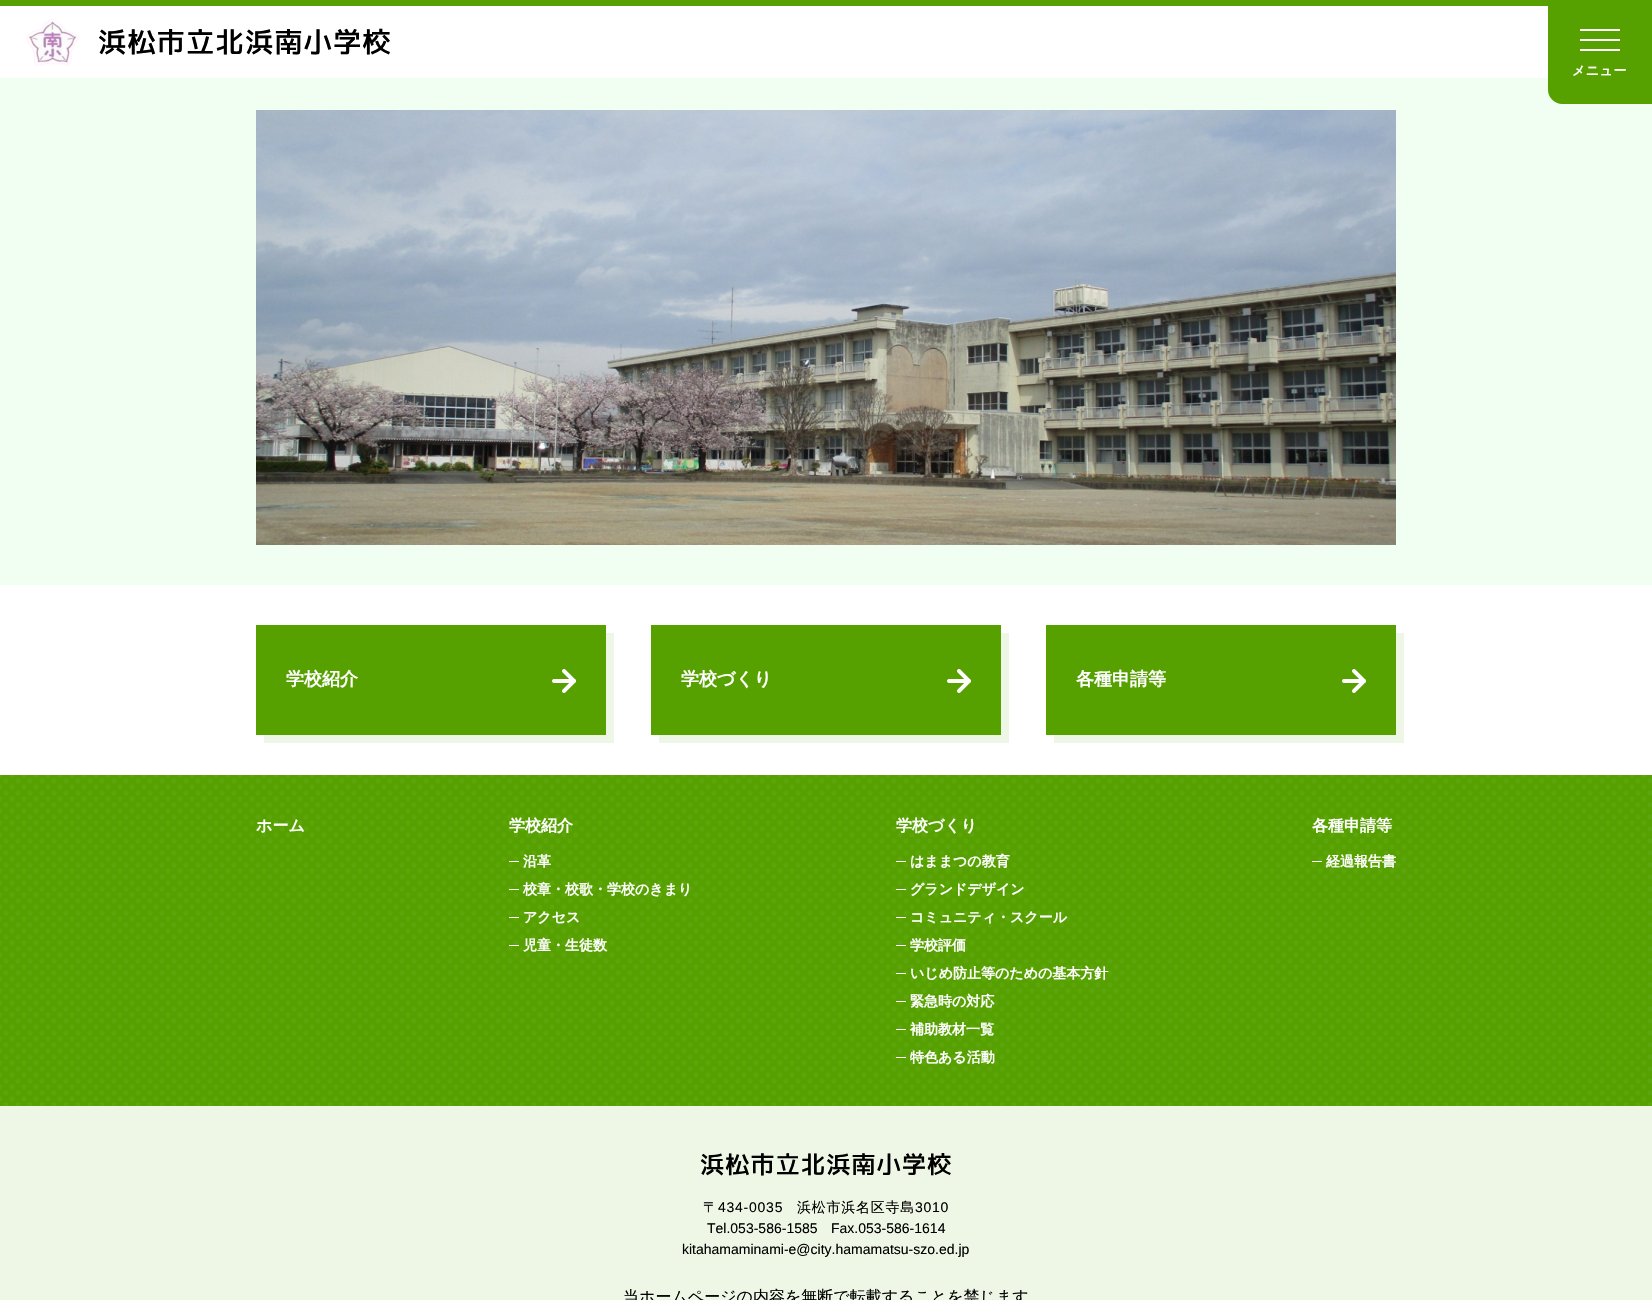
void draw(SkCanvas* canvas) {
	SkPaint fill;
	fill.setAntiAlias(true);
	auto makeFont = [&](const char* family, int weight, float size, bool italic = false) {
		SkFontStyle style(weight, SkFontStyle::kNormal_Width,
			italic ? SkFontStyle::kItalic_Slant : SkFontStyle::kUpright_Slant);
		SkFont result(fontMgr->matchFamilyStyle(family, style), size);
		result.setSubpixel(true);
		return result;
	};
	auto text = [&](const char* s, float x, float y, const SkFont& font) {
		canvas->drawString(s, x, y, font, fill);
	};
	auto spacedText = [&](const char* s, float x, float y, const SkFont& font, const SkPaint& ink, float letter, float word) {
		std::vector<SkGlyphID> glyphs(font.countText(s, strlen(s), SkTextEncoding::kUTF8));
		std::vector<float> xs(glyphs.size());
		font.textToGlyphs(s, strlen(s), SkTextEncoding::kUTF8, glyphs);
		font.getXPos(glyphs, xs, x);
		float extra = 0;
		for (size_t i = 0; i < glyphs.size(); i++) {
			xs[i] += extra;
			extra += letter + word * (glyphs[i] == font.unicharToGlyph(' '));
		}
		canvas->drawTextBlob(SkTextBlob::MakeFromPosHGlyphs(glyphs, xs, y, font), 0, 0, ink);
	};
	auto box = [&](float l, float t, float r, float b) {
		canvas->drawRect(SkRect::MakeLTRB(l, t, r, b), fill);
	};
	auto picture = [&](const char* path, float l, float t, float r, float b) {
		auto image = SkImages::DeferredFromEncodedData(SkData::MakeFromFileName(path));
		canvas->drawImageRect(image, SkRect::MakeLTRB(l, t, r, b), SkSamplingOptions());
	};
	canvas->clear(0xFFF1FEF2);
	fill.setColor(0xFFFFFFFF);
	box(0, 6, 1548, 78);
	fill.setColor(0xFF56A100);
	box(0, 0, 1548, 6);
	picture("image0.png", 26, 19, 79, 66);
	canvas->drawPath(SkPathBuilder().moveTo(1548, 0).lineTo(1652, 0).lineTo(1652, 104).lineTo(1562, 104).cubicTo(1554.5f, 104, 1548, 97.5f, 1548, 90).close().detach(), fill);
	fill.setColor(0xFFFFFFFF);
	box(1580, 39, 1620, 41);
	box(1580, 29, 1620, 31);
	box(1580, 49, 1620, 51);
	picture("image1.png", 256, 110, 1396, 545);
	box(0, 585, 1652, 775);
	fill.setColor(0xFFEEF6E5);
	canvas->drawPath(SkPathBuilder().moveTo(264, 735).lineTo(264, 743).lineTo(614, 743).lineTo(614, 633).lineTo(606, 633).lineTo(606, 735).close().detach(), fill);
	fill.setColor(0xFF56A100);
	box(256, 625, 606, 735);
	picture("image2.png", 552, 669, 576, 693);
	fill.setColor(0xFFEEF6E5);
	canvas->drawPath(SkPathBuilder().moveTo(659, 735).lineTo(659, 743).lineTo(1009, 743).lineTo(1009, 633).lineTo(1001, 633).lineTo(1001, 735).close().detach(), fill);
	fill.setColor(0xFF56A100);
	box(651, 625, 1001, 735);
	picture("image2.png", 947, 669, 971, 693);
	fill.setColor(0xFFEEF6E5);
	canvas->drawPath(SkPathBuilder().moveTo(1054, 735).lineTo(1054, 743).lineTo(1404, 743).lineTo(1404, 633).lineTo(1396, 633).lineTo(1396, 735).close().detach(), fill);
	fill.setColor(0xFF56A100);
	box(1046, 625, 1396, 735);
	picture("image2.png", 1342, 669, 1366, 693);
	fill.setColor(0xFFEEF6E5);
	box(0, 1106, 1652, 1300);
	fill.setColor(0xFF56A100);
	box(0, 775, 1652, 1106);
	fill.setStyle(SkPaint::kStroke_Style);
	fill.setStrokeWidth(4.9f);
	fill.setStrokeCap(SkPaint::kRound_Cap);
	fill.setColor(0x0DE5F7F1);
	fill.setPathEffect(SkDashPathEffect::Make({{0, 12}}, 0));
	canvas->drawPath(SkPathBuilder().moveTo(0, 775).lineTo(1644.2f, 775).detach(), fill);
	fill.setPathEffect(nullptr);
	fill.setColor(0xFF5DA50C);
	fill.setPathEffect(SkDashPathEffect::Make({{0, 12}}, 0));
	canvas->drawPath(SkPathBuilder().moveTo(0, 787).lineTo(1644.2f, 787).detach(), fill);
	fill.setPathEffect(nullptr);
	fill.setPathEffect(SkDashPathEffect::Make({{0, 12}}, 0));
	canvas->drawPath(SkPathBuilder().moveTo(0, 799).lineTo(1644.2f, 799).detach(), fill);
	fill.setPathEffect(nullptr);
	fill.setPathEffect(SkDashPathEffect::Make({{0, 12}}, 0));
	canvas->drawPath(SkPathBuilder().moveTo(0, 811).lineTo(1644.2f, 811).detach(), fill);
	fill.setPathEffect(nullptr);
	fill.setPathEffect(SkDashPathEffect::Make({{0, 12}}, 0));
	canvas->drawPath(SkPathBuilder().moveTo(0, 823).lineTo(1644.2f, 823).detach(), fill);
	fill.setPathEffect(nullptr);
	fill.setPathEffect(SkDashPathEffect::Make({{0, 12}}, 0));
	canvas->drawPath(SkPathBuilder().moveTo(0, 835).lineTo(1644.2f, 835).detach(), fill);
	fill.setPathEffect(nullptr);
	fill.setPathEffect(SkDashPathEffect::Make({{0, 12}}, 0));
	canvas->drawPath(SkPathBuilder().moveTo(0, 847).lineTo(1644.2f, 847).detach(), fill);
	fill.setPathEffect(nullptr);
	fill.setPathEffect(SkDashPathEffect::Make({{0, 12}}, 0));
	canvas->drawPath(SkPathBuilder().moveTo(0, 859).lineTo(1644.2f, 859).detach(), fill);
	fill.setPathEffect(nullptr);
	fill.setPathEffect(SkDashPathEffect::Make({{0, 12}}, 0));
	canvas->drawPath(SkPathBuilder().moveTo(0, 871).lineTo(1644.2f, 871).detach(), fill);
	fill.setPathEffect(nullptr);
	fill.setPathEffect(SkDashPathEffect::Make({{0, 12}}, 0));
	canvas->drawPath(SkPathBuilder().moveTo(0, 883).lineTo(1644.2f, 883).detach(), fill);
	fill.setPathEffect(nullptr);
	fill.setPathEffect(SkDashPathEffect::Make({{0, 12}}, 0));
	canvas->drawPath(SkPathBuilder().moveTo(0, 895).lineTo(1644.2f, 895).detach(), fill);
	fill.setPathEffect(nullptr);
	fill.setPathEffect(SkDashPathEffect::Make({{0, 12}}, 0));
	canvas->drawPath(SkPathBuilder().moveTo(0, 907).lineTo(1644.2f, 907).detach(), fill);
	fill.setPathEffect(nullptr);
	fill.setPathEffect(SkDashPathEffect::Make({{0, 12}}, 0));
	canvas->drawPath(SkPathBuilder().moveTo(0, 919).lineTo(1644.2f, 919).detach(), fill);
	fill.setPathEffect(nullptr);
	fill.setPathEffect(SkDashPathEffect::Make({{0, 12}}, 0));
	canvas->drawPath(SkPathBuilder().moveTo(0, 931).lineTo(1644.2f, 931).detach(), fill);
	fill.setPathEffect(nullptr);
	fill.setPathEffect(SkDashPathEffect::Make({{0, 12}}, 0));
	canvas->drawPath(SkPathBuilder().moveTo(0, 943).lineTo(1644.2f, 943).detach(), fill);
	fill.setPathEffect(nullptr);
	fill.setPathEffect(SkDashPathEffect::Make({{0, 12}}, 0));
	canvas->drawPath(SkPathBuilder().moveTo(0, 955).lineTo(1644.2f, 955).detach(), fill);
	fill.setPathEffect(nullptr);
	fill.setPathEffect(SkDashPathEffect::Make({{0, 12}}, 0));
	canvas->drawPath(SkPathBuilder().moveTo(0, 967).lineTo(1644.2f, 967).detach(), fill);
	fill.setPathEffect(nullptr);
	fill.setPathEffect(SkDashPathEffect::Make({{0, 12}}, 0));
	canvas->drawPath(SkPathBuilder().moveTo(0, 979).lineTo(1644.2f, 979).detach(), fill);
	fill.setPathEffect(nullptr);
	fill.setPathEffect(SkDashPathEffect::Make({{0, 12}}, 0));
	canvas->drawPath(SkPathBuilder().moveTo(0, 991).lineTo(1644.2f, 991).detach(), fill);
	fill.setPathEffect(nullptr);
	fill.setPathEffect(SkDashPathEffect::Make({{0, 12}}, 0));
	canvas->drawPath(SkPathBuilder().moveTo(0, 1003).lineTo(1644.2f, 1003).detach(), fill);
	fill.setPathEffect(nullptr);
	fill.setPathEffect(SkDashPathEffect::Make({{0, 12}}, 0));
	canvas->drawPath(SkPathBuilder().moveTo(0, 1015).lineTo(1644.2f, 1015).detach(), fill);
	fill.setPathEffect(nullptr);
	fill.setPathEffect(SkDashPathEffect::Make({{0, 12}}, 0));
	canvas->drawPath(SkPathBuilder().moveTo(0, 1027).lineTo(1644.2f, 1027).detach(), fill);
	fill.setPathEffect(nullptr);
	fill.setPathEffect(SkDashPathEffect::Make({{0, 12}}, 0));
	canvas->drawPath(SkPathBuilder().moveTo(0, 1039).lineTo(1644.2f, 1039).detach(), fill);
	fill.setPathEffect(nullptr);
	fill.setPathEffect(SkDashPathEffect::Make({{0, 12}}, 0));
	canvas->drawPath(SkPathBuilder().moveTo(0, 1051).lineTo(1644.2f, 1051).detach(), fill);
	fill.setPathEffect(nullptr);
	fill.setPathEffect(SkDashPathEffect::Make({{0, 12}}, 0));
	canvas->drawPath(SkPathBuilder().moveTo(0, 1063).lineTo(1644.2f, 1063).detach(), fill);
	fill.setPathEffect(nullptr);
	fill.setPathEffect(SkDashPathEffect::Make({{0, 12}}, 0));
	canvas->drawPath(SkPathBuilder().moveTo(0, 1075).lineTo(1644.2f, 1075).detach(), fill);
	fill.setPathEffect(nullptr);
	fill.setPathEffect(SkDashPathEffect::Make({{0, 12}}, 0));
	canvas->drawPath(SkPathBuilder().moveTo(0, 1087).lineTo(1644.2f, 1087).detach(), fill);
	fill.setPathEffect(nullptr);
	fill.setPathEffect(SkDashPathEffect::Make({{0, 12}}, 0));
	canvas->drawPath(SkPathBuilder().moveTo(0, 1099).lineTo(1644.2f, 1099).detach(), fill);
	fill.setPathEffect(nullptr);
	fill.setPathEffect(SkDashPathEffect::Make({{0, 12}}, 0));
	canvas->drawPath(SkPathBuilder().moveTo(6, 781).lineTo(1650.2f, 781).detach(), fill);
	fill.setPathEffect(nullptr);
	fill.setPathEffect(SkDashPathEffect::Make({{0, 12}}, 0));
	canvas->drawPath(SkPathBuilder().moveTo(6, 793).lineTo(1650.2f, 793).detach(), fill);
	fill.setPathEffect(nullptr);
	fill.setPathEffect(SkDashPathEffect::Make({{0, 12}}, 0));
	canvas->drawPath(SkPathBuilder().moveTo(6, 805).lineTo(1650.2f, 805).detach(), fill);
	fill.setPathEffect(nullptr);
	fill.setPathEffect(SkDashPathEffect::Make({{0, 12}}, 0));
	canvas->drawPath(SkPathBuilder().moveTo(6, 817).lineTo(1650.2f, 817).detach(), fill);
	fill.setPathEffect(nullptr);
	fill.setPathEffect(SkDashPathEffect::Make({{0, 12}}, 0));
	canvas->drawPath(SkPathBuilder().moveTo(6, 829).lineTo(1650.2f, 829).detach(), fill);
	fill.setPathEffect(nullptr);
	fill.setPathEffect(SkDashPathEffect::Make({{0, 12}}, 0));
	canvas->drawPath(SkPathBuilder().moveTo(6, 841).lineTo(1650.2f, 841).detach(), fill);
	fill.setPathEffect(nullptr);
	fill.setPathEffect(SkDashPathEffect::Make({{0, 12}}, 0));
	canvas->drawPath(SkPathBuilder().moveTo(6, 853).lineTo(1650.2f, 853).detach(), fill);
	fill.setPathEffect(nullptr);
	fill.setPathEffect(SkDashPathEffect::Make({{0, 12}}, 0));
	canvas->drawPath(SkPathBuilder().moveTo(6, 865).lineTo(1650.2f, 865).detach(), fill);
	fill.setPathEffect(nullptr);
	fill.setPathEffect(SkDashPathEffect::Make({{0, 12}}, 0));
	canvas->drawPath(SkPathBuilder().moveTo(6, 877).lineTo(1650.2f, 877).detach(), fill);
	fill.setPathEffect(nullptr);
	fill.setPathEffect(SkDashPathEffect::Make({{0, 12}}, 0));
	canvas->drawPath(SkPathBuilder().moveTo(6, 889).lineTo(1650.2f, 889).detach(), fill);
	fill.setPathEffect(nullptr);
	fill.setPathEffect(SkDashPathEffect::Make({{0, 12}}, 0));
	canvas->drawPath(SkPathBuilder().moveTo(6, 901).lineTo(1650.2f, 901).detach(), fill);
	fill.setPathEffect(nullptr);
	fill.setPathEffect(SkDashPathEffect::Make({{0, 12}}, 0));
	canvas->drawPath(SkPathBuilder().moveTo(6, 913).lineTo(1650.2f, 913).detach(), fill);
	fill.setPathEffect(nullptr);
	fill.setPathEffect(SkDashPathEffect::Make({{0, 12}}, 0));
	canvas->drawPath(SkPathBuilder().moveTo(6, 925).lineTo(1650.2f, 925).detach(), fill);
	fill.setPathEffect(nullptr);
	fill.setPathEffect(SkDashPathEffect::Make({{0, 12}}, 0));
	canvas->drawPath(SkPathBuilder().moveTo(6, 937).lineTo(1650.2f, 937).detach(), fill);
	fill.setPathEffect(nullptr);
	fill.setPathEffect(SkDashPathEffect::Make({{0, 12}}, 0));
	canvas->drawPath(SkPathBuilder().moveTo(6, 949).lineTo(1650.2f, 949).detach(), fill);
	fill.setPathEffect(nullptr);
	fill.setPathEffect(SkDashPathEffect::Make({{0, 12}}, 0));
	canvas->drawPath(SkPathBuilder().moveTo(6, 961).lineTo(1650.2f, 961).detach(), fill);
	fill.setPathEffect(nullptr);
	fill.setPathEffect(SkDashPathEffect::Make({{0, 12}}, 0));
	canvas->drawPath(SkPathBuilder().moveTo(6, 973).lineTo(1650.2f, 973).detach(), fill);
	fill.setPathEffect(nullptr);
	fill.setPathEffect(SkDashPathEffect::Make({{0, 12}}, 0));
	canvas->drawPath(SkPathBuilder().moveTo(6, 985).lineTo(1650.2f, 985).detach(), fill);
	fill.setPathEffect(nullptr);
	fill.setPathEffect(SkDashPathEffect::Make({{0, 12}}, 0));
	canvas->drawPath(SkPathBuilder().moveTo(6, 997).lineTo(1650.2f, 997).detach(), fill);
	fill.setPathEffect(nullptr);
	fill.setPathEffect(SkDashPathEffect::Make({{0, 12}}, 0));
	canvas->drawPath(SkPathBuilder().moveTo(6, 1009).lineTo(1650.2f, 1009).detach(), fill);
	fill.setPathEffect(nullptr);
	fill.setPathEffect(SkDashPathEffect::Make({{0, 12}}, 0));
	canvas->drawPath(SkPathBuilder().moveTo(6, 1021).lineTo(1650.2f, 1021).detach(), fill);
	fill.setPathEffect(nullptr);
	fill.setPathEffect(SkDashPathEffect::Make({{0, 12}}, 0));
	canvas->drawPath(SkPathBuilder().moveTo(6, 1033).lineTo(1650.2f, 1033).detach(), fill);
	fill.setPathEffect(nullptr);
	fill.setPathEffect(SkDashPathEffect::Make({{0, 12}}, 0));
	canvas->drawPath(SkPathBuilder().moveTo(6, 1045).lineTo(1650.2f, 1045).detach(), fill);
	fill.setPathEffect(nullptr);
	fill.setPathEffect(SkDashPathEffect::Make({{0, 12}}, 0));
	canvas->drawPath(SkPathBuilder().moveTo(6, 1057).lineTo(1650.2f, 1057).detach(), fill);
	fill.setPathEffect(nullptr);
	fill.setPathEffect(SkDashPathEffect::Make({{0, 12}}, 0));
	canvas->drawPath(SkPathBuilder().moveTo(6, 1069).lineTo(1650.2f, 1069).detach(), fill);
	fill.setPathEffect(nullptr);
	fill.setPathEffect(SkDashPathEffect::Make({{0, 12}}, 0));
	canvas->drawPath(SkPathBuilder().moveTo(6, 1081).lineTo(1650.2f, 1081).detach(), fill);
	fill.setPathEffect(nullptr);
	fill.setPathEffect(SkDashPathEffect::Make({{0, 12}}, 0));
	canvas->drawPath(SkPathBuilder().moveTo(6, 1093).lineTo(1650.2f, 1093).detach(), fill);
	fill.setPathEffect(nullptr);
	fill.setColor(0x0DE5F7F1);
	fill.setPathEffect(SkDashPathEffect::Make({{0, 12}}, 0));
	canvas->drawPath(SkPathBuilder().moveTo(6, 1105).lineTo(1650.2f, 1105).detach(), fill);
	fill.setPathEffect(nullptr);
	fill.setStyle(SkPaint::kFill_Style);
	fill.setColor(0xFFFFFFFF);
	box(509, 861, 519, 862);
	box(509, 889, 519, 890);
	box(509, 917, 519, 918);
	box(509, 945, 519, 946);
	box(896, 861, 906, 862);
	box(896, 889, 906, 890);
	box(896, 917, 906, 918);
	box(896, 945, 906, 946);
	box(896, 973, 906, 974);
	box(896, 1001, 906, 1002);
	box(896, 1029, 906, 1030);
	box(896, 1057, 906, 1058);
	box(1312, 861, 1322, 862);
	auto font1 = makeFont("M PLUS 1p", 500, 28);
	fill.setColor(0xFF000000);
	spacedText("浜松市立北浜南小学校", 98, 52, font1, fill, 1.4f, 0);
	auto font2 = makeFont("WenQuanYi Zen Hei", 700, 13);
	fill.setColor(0xFFFFFFFF);
	spacedText("メニュー", 1572, 75, font2, fill, 0.5f, 0);
	auto font3 = makeFont("WenQuanYi Zen Hei", 700, 18);
	text("学校紹介", 286, 685, font3);
	text("学校づくり", 681, 685, font3);
	text("各種申請等", 1076, 685, font3);
	auto font4 = makeFont("WenQuanYi Zen Hei", 700, 16);
	text("ホーム", 256, 831, font4);
	text("学校紹介", 509, 831, font4);
	auto font5 = makeFont("WenQuanYi Zen Hei", 700, 14);
	text("沿革", 523, 866, font5);
	text("校章・校歌・学校のきまり", 523, 894, font5);
	text("アクセス", 523, 922, font5);
	text("児童・生徒数", 523, 950, font5);
	text("学校づくり", 896, 831, font4);
	text("はままつの教育", 910, 866, font5);
	text("グランドデザイン", 910, 894, font5);
	text("コミュニティ・スクール", 910, 922, font5);
	text("学校評価", 910, 950, font5);
	text("いじめ防止等のための基本方針", 910, 978, font5);
	text("緊急時の対応", 910, 1006, font5);
	text("補助教材一覧", 910, 1034, font5);
	text("特色ある活動", 910, 1062, font5);
	text("各種申請等", 1312, 831, font4);
	text("経過報告書", 1326, 866, font5);
	auto font6 = makeFont("M PLUS 1p", 500, 24);
	fill.setColor(0xFF000000);
	spacedText("浜松市立北浜南小学校", 700, 1173, font6, fill, 1.25f, 0);
	auto font7 = makeFont("WenQuanYi Zen Hei", 500, 14);
	spacedText("〒", 703, 1212, font7, fill, 0.75f, 0);
	auto font8 = makeFont("Liberation Sans", 400, 14);
	spacedText("434-0035", 718, 1212, font8, fill, 0.75f, 0);
	spacedText("浜松市浜名区寺島", 797, 1212, font7, fill, 0.75f, 0);
	spacedText("3010", 915, 1212, font8, fill, 0.75f, 0);
	text("Tel.053-586-1585", 707, 1233, font8);
	text("Fax.053-586-1614", 831, 1233, font8);
	text("kitahamaminami-e@city.hamamatsu-szo.ed.jp", 682, 1254, font8);
	auto font9 = makeFont("WenQuanYi Zen Hei", 500, 16);
	text("当ホームページの内容を無断で転載することを禁じます", 623, 1302, font9);
}
